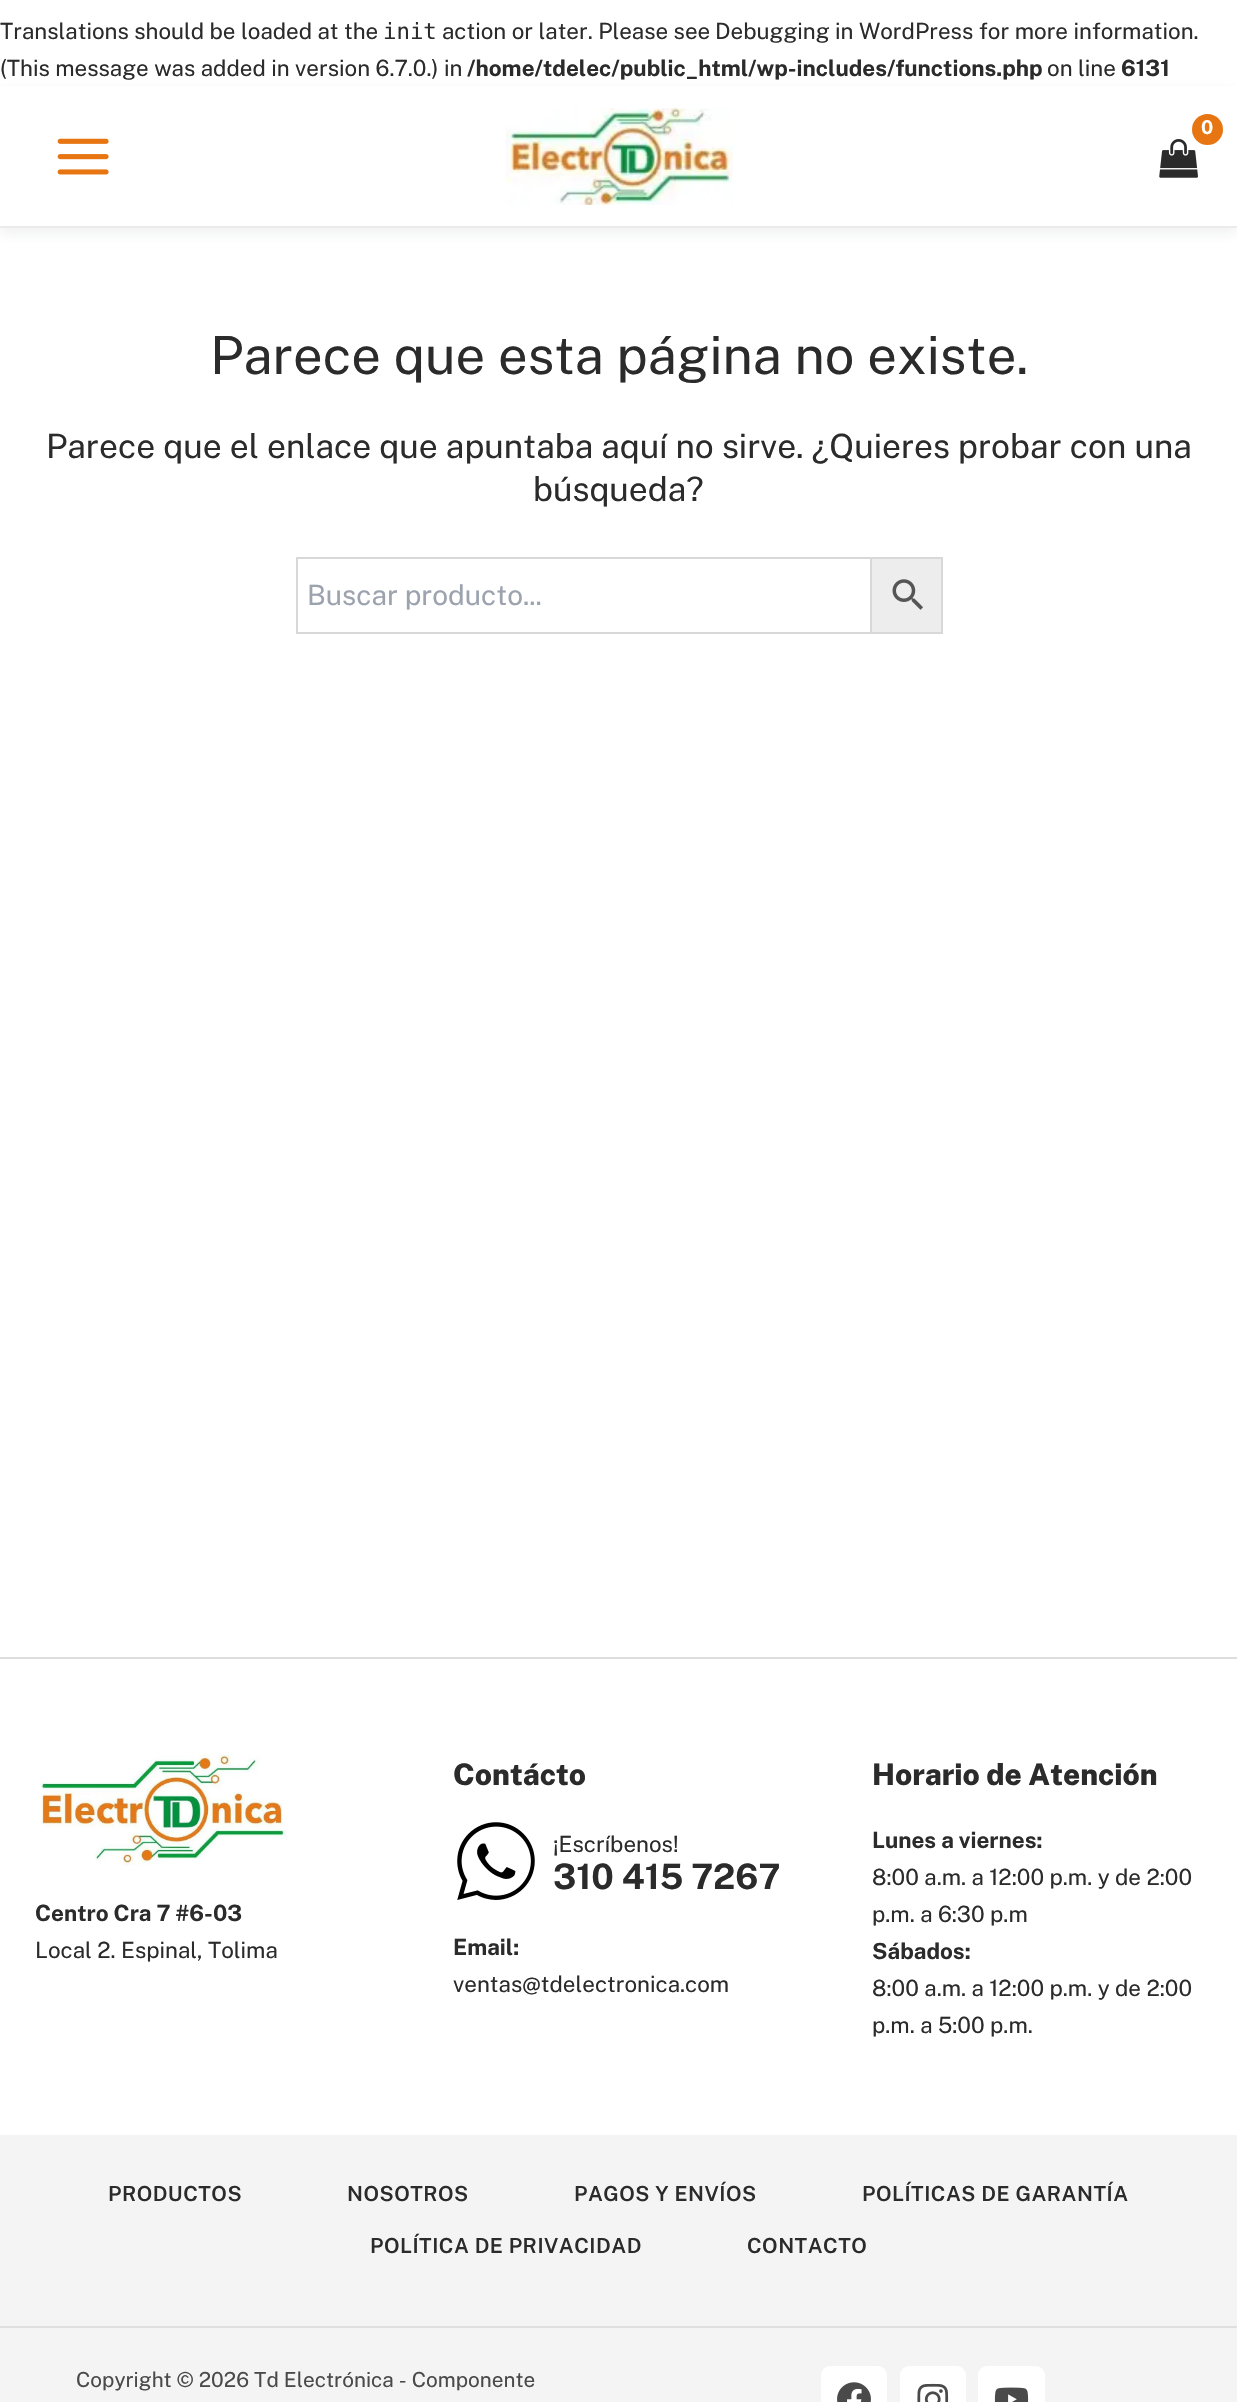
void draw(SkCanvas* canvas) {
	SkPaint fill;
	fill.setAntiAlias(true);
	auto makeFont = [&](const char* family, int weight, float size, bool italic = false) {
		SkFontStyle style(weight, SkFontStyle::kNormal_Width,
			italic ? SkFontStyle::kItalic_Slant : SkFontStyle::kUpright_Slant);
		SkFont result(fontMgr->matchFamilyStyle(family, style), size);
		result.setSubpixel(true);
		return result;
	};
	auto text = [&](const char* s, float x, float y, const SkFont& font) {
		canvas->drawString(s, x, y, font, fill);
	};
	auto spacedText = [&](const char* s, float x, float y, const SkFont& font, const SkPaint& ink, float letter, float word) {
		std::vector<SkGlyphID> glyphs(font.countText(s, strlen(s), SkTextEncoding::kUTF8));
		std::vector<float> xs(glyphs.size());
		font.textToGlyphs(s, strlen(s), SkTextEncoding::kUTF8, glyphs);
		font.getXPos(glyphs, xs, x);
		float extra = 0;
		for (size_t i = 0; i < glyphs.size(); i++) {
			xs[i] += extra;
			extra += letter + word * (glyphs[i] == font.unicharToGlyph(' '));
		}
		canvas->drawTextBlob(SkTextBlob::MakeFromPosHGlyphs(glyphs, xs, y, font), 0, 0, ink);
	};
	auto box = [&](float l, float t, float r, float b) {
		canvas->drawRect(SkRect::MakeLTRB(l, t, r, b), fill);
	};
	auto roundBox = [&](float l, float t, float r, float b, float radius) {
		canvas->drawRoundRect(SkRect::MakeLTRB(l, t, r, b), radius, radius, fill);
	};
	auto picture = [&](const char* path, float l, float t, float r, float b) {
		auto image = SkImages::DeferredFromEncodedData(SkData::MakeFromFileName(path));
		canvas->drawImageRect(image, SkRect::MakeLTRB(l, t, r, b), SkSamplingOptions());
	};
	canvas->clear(0xFFFFFFFF);
	fill.setColor(0x12212529);
	fill.setMaskFilter(SkMaskFilter::MakeBlur(kNormal_SkBlurStyle, 6));
	canvas->drawRect(SkRect::MakeLTRB(0, 91, 1237, 233), fill);
	fill.setMaskFilter(nullptr);
	fill.setColor(0xFFFFFFFF);
	box(0, 86, 1237, 226);
	fill.setColor(0xFFEBEBEB);
	box(0, 226, 1237, 228);
	picture("image0.png", 505, 108, 733, 205);
	picture("image1.png", 1159, 139, 1198, 178);
	fill.setColor(0xFFE67512);
	canvas->drawCircle(1207.5f, 129.5f, 15.5f, fill);
	picture("image2.png", 57, 138, 109, 175);
	fill.setColor(0xFFEDEDED);
	canvas->drawRect(SkRect::MakeLTRB(871, 558, 942, 633), fill);
	fill.setStyle(SkPaint::kStroke_Style);
	fill.setStrokeWidth(2);
	fill.setColor(0xFFD8D8D8);
	canvas->drawRect(SkRect::MakeLTRB(871, 558, 942, 633), fill);
	canvas->drawRect(SkRect::MakeLTRB(297, 558, 871, 633), fill);
	picture("image3.png", 892, 579, 923, 610);
	fill.setStyle(SkPaint::kFill_Style);
	fill.setColor(0xFFDDDDDD);
	box(0, 1657, 1237, 1659);
	picture("image4.png", 40, 1755, 287, 1866);
	picture("image5.png", 457, 1822, 535, 1900);
	fill.setColor(0xFFF4F4F4);
	box(0, 2135, 1237, 2326);
	box(0, 2328, 1237, 2402);
	fill.setColor(0xFFDFDFDF);
	box(0, 2326, 1237, 2328);
	fill.setColor(0xFFFFFFFF);
	roundBox(821, 2366, 887, 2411, 9);
	picture("image6.png", 837, 2382, 871, 2402);
	roundBox(900, 2366, 966, 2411, 9);
	picture("image7.png", 917, 2383, 949, 2402);
	roundBox(978, 2366, 1045, 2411, 9);
	picture("image8.png", 994, 2387, 1029, 2402);
	auto font1 = makeFont("Public Sans", 400, 22.35f);
	fill.setColor(0xFF2B2B2B);
	text("Translations should be loaded at the", 0, 39, font1);
	auto font2 = makeFont("DejaVu Sans Mono", 400, 22.35f);
	text("init", 383, 39, font2);
	text("action or later. Please see", 442, 39, font1);
	text("Debugging in WordPress", 715, 39, font1);
	text("for more information.", 979, 39, font1);
	text("(This message was added in version 6.7.0.) in", 0, 76, font1);
	auto font3 = makeFont("Public Sans", 700, 22.35f);
	text("/home/tdelec/public_html/wp-includes/functions.php", 467, 76, font3);
	text("on line", 1047, 76, font1);
	text("6131", 1121, 76, font3);
	auto font4 = makeFont("Public Sans", 700, 19);
	fill.setColor(0xFFFFFFFF);
	spacedText("0", 1201, 134, font4, fill, -1, 0);
	auto font5 = makeFont("Public Sans", 400, 52.5f);
	fill.setColor(0xFF2B2B2B);
	text("Parece que esta página no existe.", 210, 374, font5);
	auto font6 = makeFont("Public Sans", 400, 33.5f);
	text("Parece que el enlace que apuntaba aquí no sirve. ¿Quieres probar con una", 46, 458, font6);
	text("búsqueda?", 533, 501, font6);
	auto font7 = makeFont("Public Sans", 400, 28);
	fill.setColor(0xFF9CA3AF);
	text("Buscar producto...", 307, 605, font7);
	fill.setColor(0xFF2B2B2B);
	text("Centro Cra 7 #6-03", 35, 1921, font3);
	text("Local 2. Espinal, Tolima", 35, 1958, font1);
	auto font8 = makeFont("Public Sans", 800, 29.75f);
	text("Contácto", 453, 1785, font8);
	text("¡Escríbenos!", 553, 1852, font1);
	auto font9 = makeFont("Public Sans", 700, 35);
	text("310 415 7267", 553, 1889, font9);
	text("Email:", 453, 1955, font3);
	text("ventas@tdelectronica.com", 453, 1992, font1);
	text("Horario de Atención", 872, 1785, font8);
	text("Lunes a viernes:", 872, 1848, font3);
	text("8:00 a.m. a 12:00 p.m. y de 2:00", 872, 1885, font1);
	text("p.m. a 6:30 p.m", 872, 1922, font1);
	text("Sábados:", 872, 1959, font3);
	text("8:00 a.m. a 12:00 p.m. y de 2:00", 872, 1996, font1);
	text("p.m. a 5:00 p.m.", 872, 2033, font1);
	auto font10 = makeFont("Public Sans", 600, 20.75f);
	spacedText("PRODUCTOS", 108, 2201, font10, fill, 0.5f, 0);
	spacedText("NOSOTROS", 347, 2201, font10, fill, 0.5f, 0);
	spacedText("PAGOS Y ENVÍOS", 574, 2201, font10, fill, 0.5f, 0);
	spacedText("POLÍTICAS DE GARANTÍA", 862, 2201, font10, fill, 0.5f, 0);
	spacedText("POLÍTICA DE PRIVACIDAD", 370, 2253, font10, fill, 0.5f, 0);
	spacedText("CONTACTO", 747, 2253, font10, fill, 0.5f, 0);
	auto font11 = makeFont("Public Sans", 400, 20.75f);
	fill.setColor(0xFF4A4A4A);
	text("Copyright © 2026 Td Electrónica - Componente", 76, 2387, font11);
}
